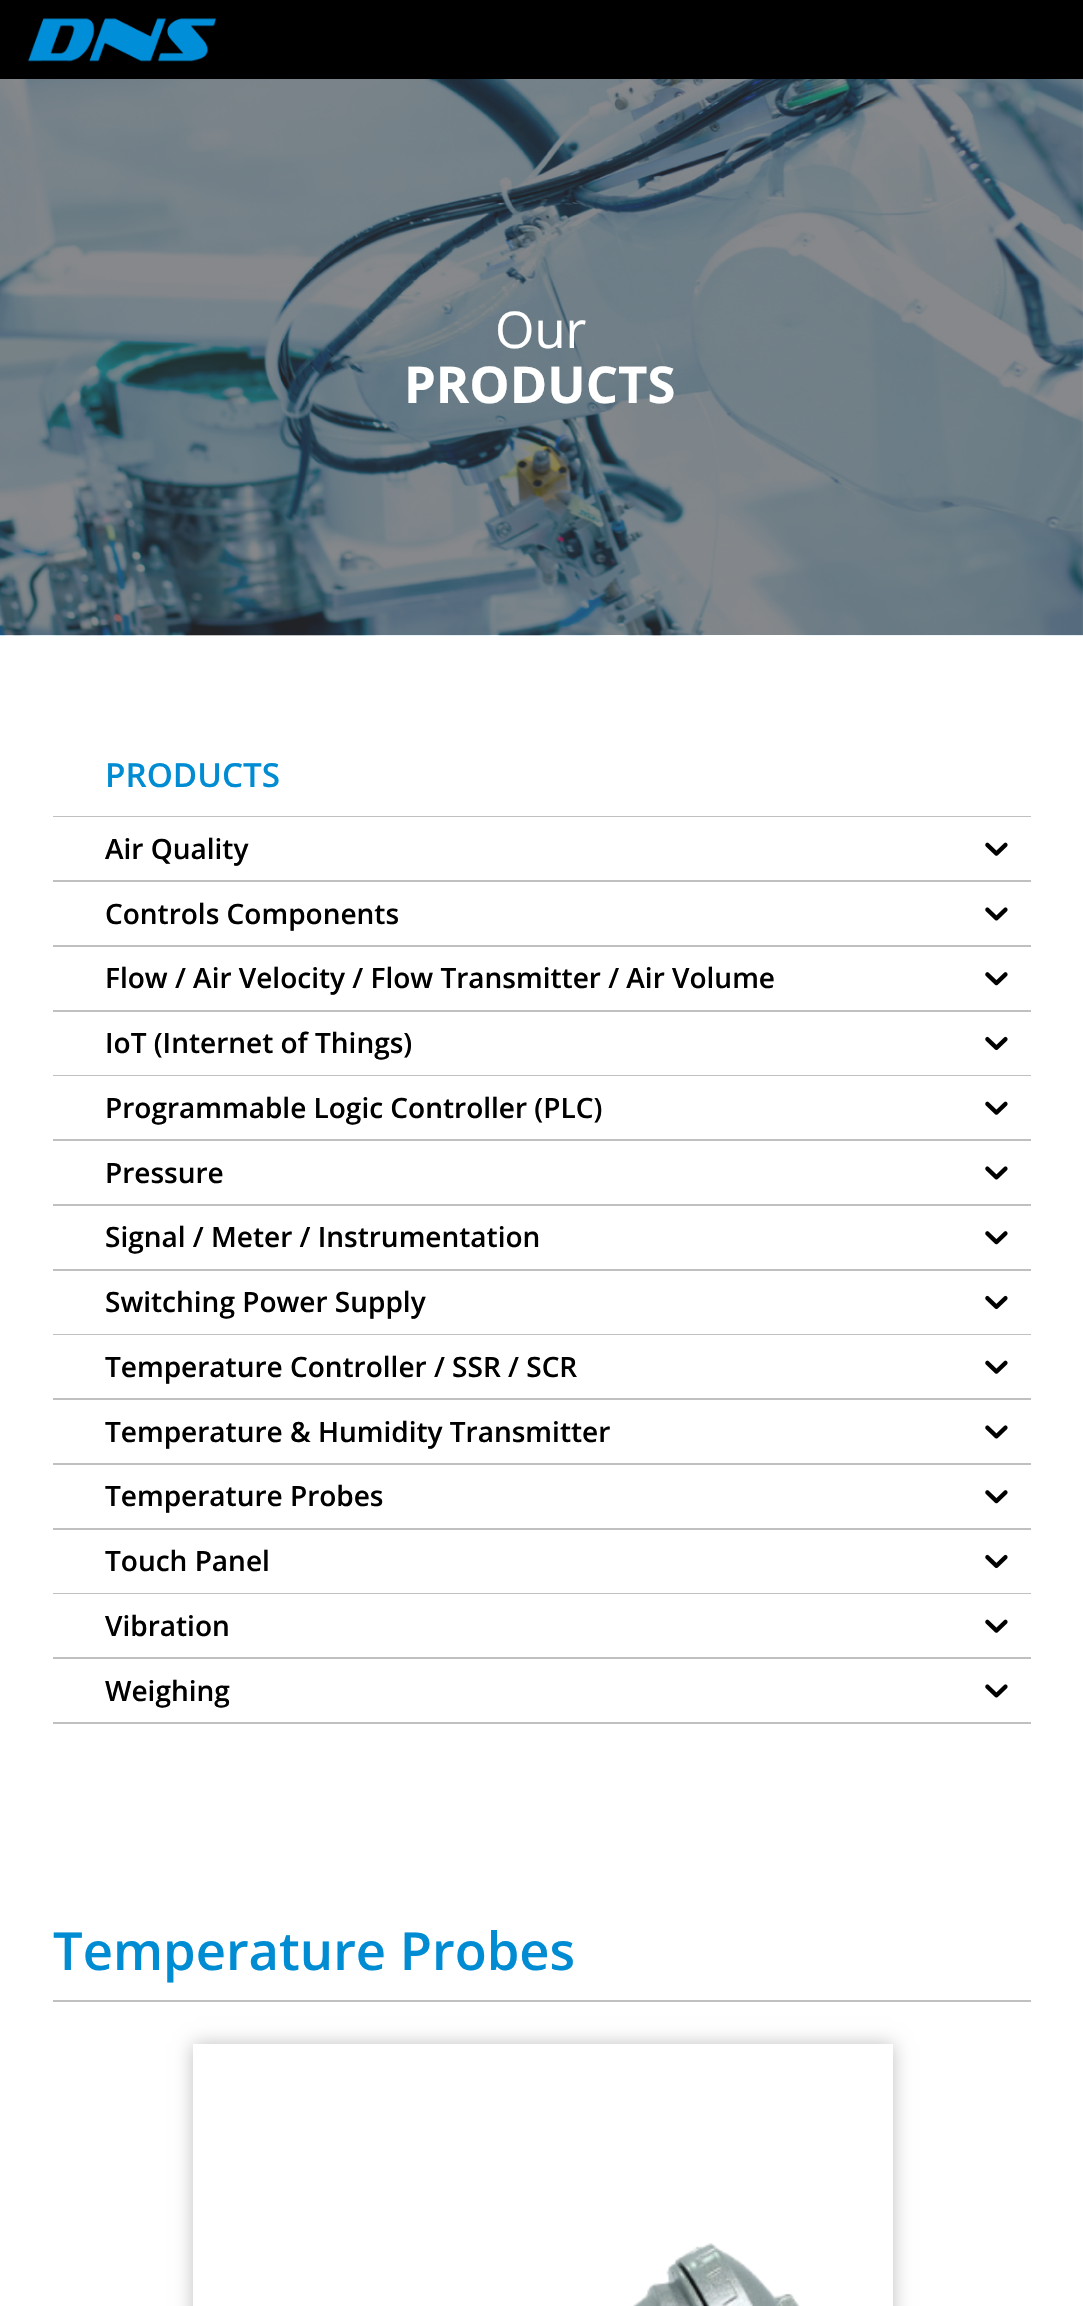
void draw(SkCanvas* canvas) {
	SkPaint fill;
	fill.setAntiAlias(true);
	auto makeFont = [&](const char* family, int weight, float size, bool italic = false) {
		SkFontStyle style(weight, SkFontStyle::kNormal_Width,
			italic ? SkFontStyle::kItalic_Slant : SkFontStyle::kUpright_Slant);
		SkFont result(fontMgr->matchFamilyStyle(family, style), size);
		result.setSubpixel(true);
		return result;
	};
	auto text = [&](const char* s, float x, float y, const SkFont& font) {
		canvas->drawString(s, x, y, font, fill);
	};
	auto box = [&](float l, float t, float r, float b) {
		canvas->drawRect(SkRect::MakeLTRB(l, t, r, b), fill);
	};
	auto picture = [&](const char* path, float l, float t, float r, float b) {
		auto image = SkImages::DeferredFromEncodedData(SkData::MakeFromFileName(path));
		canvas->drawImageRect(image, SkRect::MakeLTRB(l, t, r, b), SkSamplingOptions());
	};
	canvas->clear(0xFFFFFFFF);
	fill.setColor(0xFF000000);
	box(0, 0, 1083, 79);
	picture("image0.png", 28, 18, 217, 62);
	picture("image1.png", 0, 79, 1083, 636);
	fill.setColor(0xFFC0C0C0);
	box(53, 816, 1031, 817);
	box(53, 880, 1031, 882);
	picture("image2.png", 985, 842, 1008, 856);
	box(53, 945, 1031, 947);
	picture("image3.png", 985, 907, 1008, 921);
	box(53, 1010, 1031, 1012);
	picture("image4.png", 985, 972, 1008, 986);
	box(53, 1075, 1031, 1076);
	picture("image5.png", 985, 1036, 1008, 1051);
	box(53, 1139, 1031, 1141);
	picture("image2.png", 985, 1101, 1008, 1115);
	box(53, 1204, 1031, 1206);
	picture("image3.png", 985, 1166, 1008, 1180);
	box(53, 1269, 1031, 1271);
	picture("image4.png", 985, 1231, 1008, 1245);
	box(53, 1334, 1031, 1335);
	picture("image5.png", 985, 1295, 1008, 1310);
	box(53, 1398, 1031, 1400);
	picture("image2.png", 985, 1360, 1008, 1374);
	box(53, 1463, 1031, 1465);
	picture("image3.png", 985, 1425, 1008, 1439);
	box(53, 1528, 1031, 1530);
	picture("image4.png", 985, 1490, 1008, 1504);
	box(53, 1593, 1031, 1594);
	picture("image5.png", 985, 1554, 1008, 1569);
	box(53, 1657, 1031, 1659);
	picture("image2.png", 985, 1619, 1008, 1633);
	box(53, 1722, 1031, 1724);
	picture("image3.png", 985, 1684, 1008, 1698);
	box(53, 2000, 1031, 2002);
	canvas->save();
	canvas->clipPath(SkPathBuilder(SkPathFillType::kEvenOdd).moveTo(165, 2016).lineTo(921, 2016).lineTo(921, 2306).lineTo(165, 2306).close().moveTo(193, 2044).lineTo(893, 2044).lineTo(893, 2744).lineTo(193, 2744).close().detach(), true);
	fill.setColor(0xFFBFBFBF);
	fill.setMaskFilter(SkMaskFilter::MakeBlur(kNormal_SkBlurStyle, 9));
	canvas->drawRect(SkRect::MakeLTRB(193, 2044, 893, 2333), fill);
	fill.setMaskFilter(nullptr);
	canvas->restore();
	picture("image6.png", 633, 2243, 800, 2306);
	auto font1 = makeFont("Open Sans", 400, 50.75f);
	fill.setColor(0xFFFFFFFF);
	text("Our", 495, 348, font1);
	auto font2 = makeFont("Open Sans", 700, 50.75f);
	text("PRODUCTS", 404, 403, font2);
	auto font3 = makeFont("Open Sans", 600, 33.25f);
	fill.setColor(0xFF008CD3);
	text("PRODUCTS", 105, 787, font3);
	auto font4 = makeFont("Open Sans", 600, 28);
	fill.setColor(0xFF000000);
	text("Air Quality", 105, 859, font4);
	text("Controls Components", 105, 924, font4);
	text("Flow / Air Velocity / Flow Transmitter / Air Volume", 105, 988, font4);
	text("IoT (Internet of Things)", 105, 1053, font4);
	text("Programmable Logic Controller (PLC)", 105, 1118, font4);
	text("Pressure", 105, 1183, font4);
	text("Signal / Meter / Instrumentation", 105, 1247, font4);
	text("Switching Power Supply", 105, 1312, font4);
	text("Temperature Controller / SSR / SCR", 105, 1377, font4);
	text("Temperature & Humidity Transmitter", 105, 1442, font4);
	text("Temperature Probes", 105, 1506, font4);
	text("Touch Panel", 105, 1571, font4);
	text("Vibration", 105, 1636, font4);
	text("Weighing", 105, 1701, font4);
	auto font5 = makeFont("Open Sans", 600, 52.5f);
	fill.setColor(0xFF008CD3);
	text("Temperature Probes", 53, 1970, font5);
}
